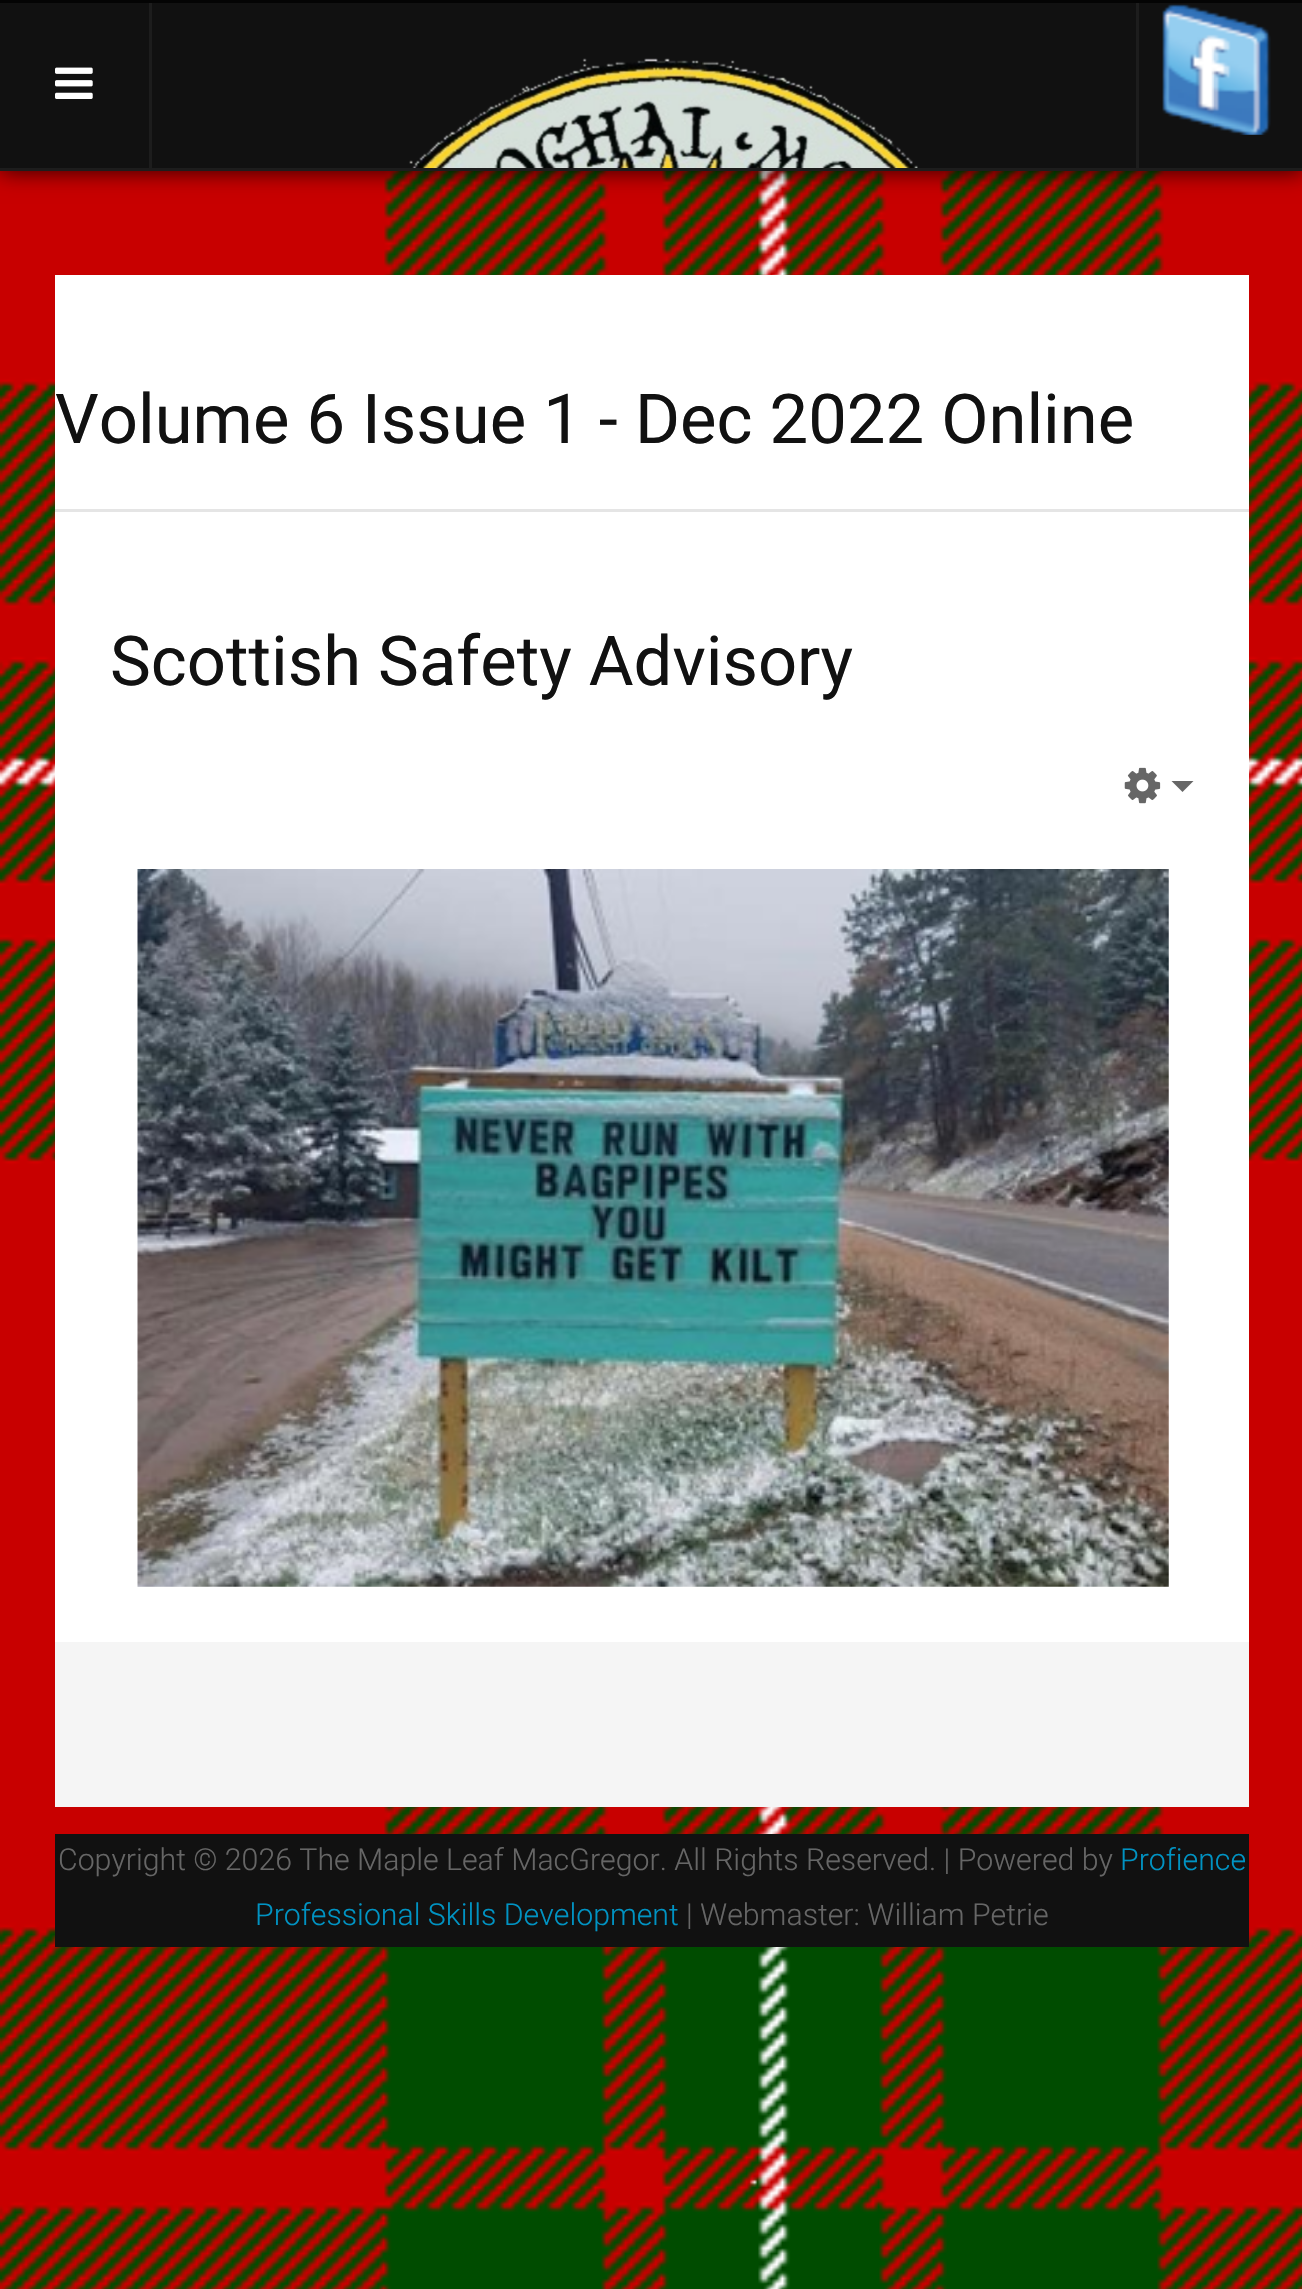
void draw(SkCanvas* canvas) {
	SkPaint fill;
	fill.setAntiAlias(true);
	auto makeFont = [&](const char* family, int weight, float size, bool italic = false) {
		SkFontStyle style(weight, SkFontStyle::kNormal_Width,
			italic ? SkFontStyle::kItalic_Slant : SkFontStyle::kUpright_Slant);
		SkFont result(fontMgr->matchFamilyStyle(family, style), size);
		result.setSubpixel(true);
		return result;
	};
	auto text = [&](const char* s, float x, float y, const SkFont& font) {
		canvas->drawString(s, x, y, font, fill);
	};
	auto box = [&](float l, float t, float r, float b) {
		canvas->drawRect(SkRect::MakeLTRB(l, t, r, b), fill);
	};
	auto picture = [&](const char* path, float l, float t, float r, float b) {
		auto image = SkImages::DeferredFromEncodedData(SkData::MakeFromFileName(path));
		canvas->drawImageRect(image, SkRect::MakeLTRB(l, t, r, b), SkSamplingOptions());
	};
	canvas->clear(0xFFFFFFFF);
	picture("image0.png", 0, 171, 1302, 2289);
	fill.setColor(0xCC000000);
	fill.setMaskFilter(SkMaskFilter::MakeBlur(kNormal_SkBlurStyle, 11));
	canvas->drawRect(SkRect::MakeLTRB(0, 0, 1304, 171), fill);
	fill.setMaskFilter(nullptr);
	fill.setColor(0xFF111111);
	box(0, 3, 1302, 168);
	fill.setColor(0xFF040404);
	box(0, 0, 1302, 3);
	fill.setColor(0xFF1D1D1D);
	box(0, 168, 1302, 171);
	box(149, 3, 152, 168);
	picture("image1.png", 55, 67, 93, 99);
	picture("image2.png", 409, 58, 918, 168);
	box(1136, 3, 1139, 168);
	picture("image3.png", 1162, 4, 1271, 135);
	fill.setColor(0xFFFFFFFF);
	box(55, 275, 1249, 1642);
	fill.setColor(0xFFE5E5E5);
	box(55, 509, 1249, 512);
	picture("image4.png", 1124, 767, 1161, 804);
	fill.setColor(0xFF666666);
	canvas->drawPath(SkPathBuilder().moveTo(1171.5f, 781).lineTo(1193.5f, 781).lineTo(1182.5f, 792).close().detach(), fill);
	picture("image5.png", 137, 869, 1169, 1587);
	fill.setColor(0xFFF5F5F5);
	box(55, 1642, 1249, 1807);
	fill.setColor(0xFF111111);
	box(55, 1834, 1249, 1947);
	auto font1 = makeFont("Roboto", 400, 68.75f);
	text("Volume 6 Issue 1 - Dec 2022 Online", 55, 443, font1);
	text("Scottish Safety Advisory", 110, 685, font1);
	auto font2 = makeFont("Roboto", 300, 30.25f);
	fill.setColor(0xFF666666);
	text("Copyright © 2026 The Maple Leaf MacGregor. All Rights Reserved. | Powered by", 58, 1870, font2);
	fill.setColor(0xFF0093C3);
	text("Profience", 1120, 1870, font2);
	text("Professional Skills Development", 255, 1925, font2);
	fill.setColor(0xFF666666);
	text("| Webmaster: William Petrie", 686, 1925, font2);
}
